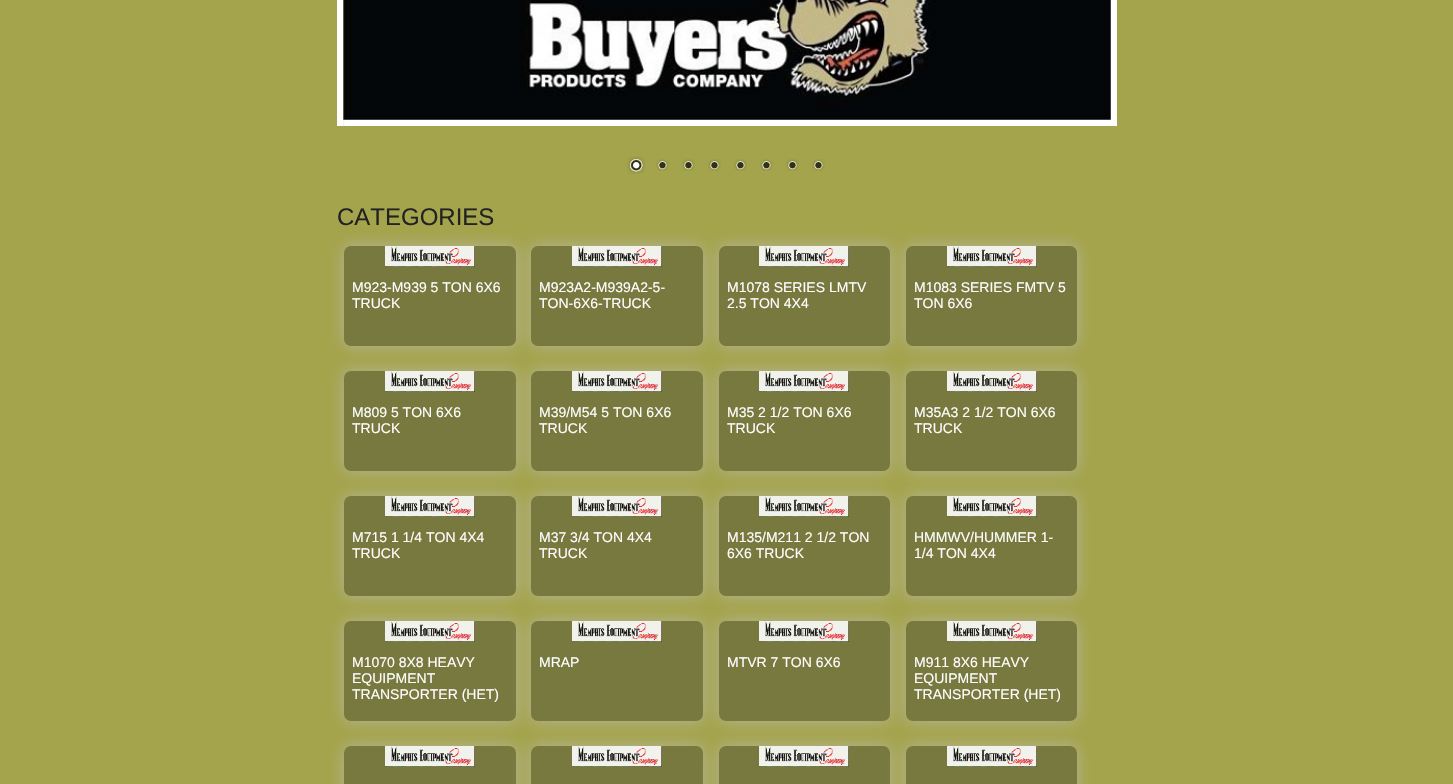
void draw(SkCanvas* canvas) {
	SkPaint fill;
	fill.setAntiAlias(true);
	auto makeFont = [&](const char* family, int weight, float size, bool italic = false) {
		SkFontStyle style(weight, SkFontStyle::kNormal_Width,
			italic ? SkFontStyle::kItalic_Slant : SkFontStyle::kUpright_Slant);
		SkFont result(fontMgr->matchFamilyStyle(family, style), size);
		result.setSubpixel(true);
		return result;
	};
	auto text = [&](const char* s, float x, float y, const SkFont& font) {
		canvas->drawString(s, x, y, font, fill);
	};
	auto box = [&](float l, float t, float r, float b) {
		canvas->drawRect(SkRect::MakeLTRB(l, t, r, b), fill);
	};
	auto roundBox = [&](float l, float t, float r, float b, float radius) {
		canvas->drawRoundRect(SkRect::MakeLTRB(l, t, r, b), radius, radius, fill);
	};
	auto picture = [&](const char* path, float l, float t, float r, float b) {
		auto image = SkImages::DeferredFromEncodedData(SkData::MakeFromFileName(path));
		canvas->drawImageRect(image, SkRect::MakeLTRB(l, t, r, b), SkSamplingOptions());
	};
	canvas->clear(0xFFA4A44C);
	fill.setColor(0xFFFFFFFF);
	box(337, 0, 1117, 126);
	picture("image0.png", 343, 0, 1111, 126);
	picture("image1.png", 627, 156, 645, 174);
	picture("image2.png", 656, 159, 669, 171);
	picture("image2.png", 682, 159, 695, 171);
	picture("image2.png", 708, 159, 721, 171);
	picture("image2.png", 734, 159, 747, 171);
	picture("image2.png", 760, 159, 773, 171);
	picture("image2.png", 786, 159, 799, 171);
	picture("image2.png", 812, 159, 825, 171);
	fill.setColor(0xFFB6B497);
	fill.setMaskFilter(SkMaskFilter::MakeBlur(kNormal_SkBlurStyle, 8));
	canvas->drawRoundRect(SkRect::MakeLTRB(344, 246, 516, 346), 7, 7, fill);
	fill.setMaskFilter(nullptr);
	fill.setColor(0xFF78793F);
	roundBox(344, 246, 516, 346, 7);
	picture("image3.png", 385, 246, 475, 267);
	fill.setColor(0xFFB6B497);
	fill.setMaskFilter(SkMaskFilter::MakeBlur(kNormal_SkBlurStyle, 8));
	canvas->drawRoundRect(SkRect::MakeLTRB(531, 246, 703, 346), 7, 7, fill);
	fill.setMaskFilter(nullptr);
	fill.setColor(0xFF78793F);
	roundBox(531, 246, 703, 346, 7);
	picture("image4.png", 572, 246, 662, 267);
	fill.setColor(0xFFB6B497);
	fill.setMaskFilter(SkMaskFilter::MakeBlur(kNormal_SkBlurStyle, 8));
	canvas->drawRoundRect(SkRect::MakeLTRB(719, 246, 890, 346), 7, 7, fill);
	fill.setMaskFilter(nullptr);
	fill.setColor(0xFF78793F);
	roundBox(719, 246, 890, 346, 7);
	picture("image3.png", 759, 246, 849, 267);
	fill.setColor(0xFFB6B497);
	fill.setMaskFilter(SkMaskFilter::MakeBlur(kNormal_SkBlurStyle, 8));
	canvas->drawRoundRect(SkRect::MakeLTRB(906, 246, 1077, 346), 7, 7, fill);
	fill.setMaskFilter(nullptr);
	fill.setColor(0xFF78793F);
	roundBox(906, 246, 1077, 346, 7);
	picture("image3.png", 947, 246, 1037, 267);
	fill.setColor(0xFFB6B497);
	fill.setMaskFilter(SkMaskFilter::MakeBlur(kNormal_SkBlurStyle, 8));
	canvas->drawRoundRect(SkRect::MakeLTRB(344, 371, 516, 471), 7, 7, fill);
	fill.setMaskFilter(nullptr);
	fill.setColor(0xFF78793F);
	roundBox(344, 371, 516, 471, 7);
	picture("image3.png", 385, 371, 475, 392);
	fill.setColor(0xFFB6B497);
	fill.setMaskFilter(SkMaskFilter::MakeBlur(kNormal_SkBlurStyle, 8));
	canvas->drawRoundRect(SkRect::MakeLTRB(531, 371, 703, 471), 7, 7, fill);
	fill.setMaskFilter(nullptr);
	fill.setColor(0xFF78793F);
	roundBox(531, 371, 703, 471, 7);
	picture("image4.png", 572, 371, 662, 392);
	fill.setColor(0xFFB6B497);
	fill.setMaskFilter(SkMaskFilter::MakeBlur(kNormal_SkBlurStyle, 8));
	canvas->drawRoundRect(SkRect::MakeLTRB(719, 371, 890, 471), 7, 7, fill);
	fill.setMaskFilter(nullptr);
	fill.setColor(0xFF78793F);
	roundBox(719, 371, 890, 471, 7);
	picture("image3.png", 759, 371, 849, 392);
	fill.setColor(0xFFB6B497);
	fill.setMaskFilter(SkMaskFilter::MakeBlur(kNormal_SkBlurStyle, 8));
	canvas->drawRoundRect(SkRect::MakeLTRB(906, 371, 1077, 471), 7, 7, fill);
	fill.setMaskFilter(nullptr);
	fill.setColor(0xFF78793F);
	roundBox(906, 371, 1077, 471, 7);
	picture("image3.png", 947, 371, 1037, 392);
	fill.setColor(0xFFB6B497);
	fill.setMaskFilter(SkMaskFilter::MakeBlur(kNormal_SkBlurStyle, 8));
	canvas->drawRoundRect(SkRect::MakeLTRB(344, 496, 516, 596), 7, 7, fill);
	fill.setMaskFilter(nullptr);
	fill.setColor(0xFF78793F);
	roundBox(344, 496, 516, 596, 7);
	picture("image3.png", 385, 496, 475, 517);
	fill.setColor(0xFFB6B497);
	fill.setMaskFilter(SkMaskFilter::MakeBlur(kNormal_SkBlurStyle, 8));
	canvas->drawRoundRect(SkRect::MakeLTRB(531, 496, 703, 596), 7, 7, fill);
	fill.setMaskFilter(nullptr);
	fill.setColor(0xFF78793F);
	roundBox(531, 496, 703, 596, 7);
	picture("image4.png", 572, 496, 662, 517);
	fill.setColor(0xFFB6B497);
	fill.setMaskFilter(SkMaskFilter::MakeBlur(kNormal_SkBlurStyle, 8));
	canvas->drawRoundRect(SkRect::MakeLTRB(719, 496, 890, 596), 7, 7, fill);
	fill.setMaskFilter(nullptr);
	fill.setColor(0xFF78793F);
	roundBox(719, 496, 890, 596, 7);
	picture("image3.png", 759, 496, 849, 517);
	fill.setColor(0xFFB6B497);
	fill.setMaskFilter(SkMaskFilter::MakeBlur(kNormal_SkBlurStyle, 8));
	canvas->drawRoundRect(SkRect::MakeLTRB(906, 496, 1077, 596), 7, 7, fill);
	fill.setMaskFilter(nullptr);
	fill.setColor(0xFF78793F);
	roundBox(906, 496, 1077, 596, 7);
	picture("image3.png", 947, 496, 1037, 517);
	fill.setColor(0xFFB6B497);
	fill.setMaskFilter(SkMaskFilter::MakeBlur(kNormal_SkBlurStyle, 8));
	canvas->drawRoundRect(SkRect::MakeLTRB(344, 621, 516, 721), 7, 7, fill);
	fill.setMaskFilter(nullptr);
	fill.setColor(0xFF78793F);
	roundBox(344, 621, 516, 721, 7);
	picture("image3.png", 385, 621, 475, 642);
	fill.setColor(0xFFB6B497);
	fill.setMaskFilter(SkMaskFilter::MakeBlur(kNormal_SkBlurStyle, 8));
	canvas->drawRoundRect(SkRect::MakeLTRB(531, 621, 703, 721), 7, 7, fill);
	fill.setMaskFilter(nullptr);
	fill.setColor(0xFF78793F);
	roundBox(531, 621, 703, 721, 7);
	picture("image4.png", 572, 621, 662, 642);
	fill.setColor(0xFFB6B497);
	fill.setMaskFilter(SkMaskFilter::MakeBlur(kNormal_SkBlurStyle, 8));
	canvas->drawRoundRect(SkRect::MakeLTRB(719, 621, 890, 721), 7, 7, fill);
	fill.setMaskFilter(nullptr);
	fill.setColor(0xFF78793F);
	roundBox(719, 621, 890, 721, 7);
	picture("image3.png", 759, 621, 849, 642);
	fill.setColor(0xFFB6B497);
	fill.setMaskFilter(SkMaskFilter::MakeBlur(kNormal_SkBlurStyle, 8));
	canvas->drawRoundRect(SkRect::MakeLTRB(906, 621, 1077, 721), 7, 7, fill);
	fill.setMaskFilter(nullptr);
	fill.setColor(0xFF78793F);
	roundBox(906, 621, 1077, 721, 7);
	picture("image3.png", 947, 621, 1037, 642);
	fill.setColor(0xFFB6B497);
	fill.setMaskFilter(SkMaskFilter::MakeBlur(kNormal_SkBlurStyle, 8));
	canvas->drawRoundRect(SkRect::MakeLTRB(344, 746, 516, 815), 7, 7, fill);
	fill.setMaskFilter(nullptr);
	fill.setColor(0xFF78793F);
	roundBox(344, 746, 516, 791, 7);
	picture("image3.png", 385, 746, 475, 767);
	fill.setColor(0xFFB6B497);
	fill.setMaskFilter(SkMaskFilter::MakeBlur(kNormal_SkBlurStyle, 8));
	canvas->drawRoundRect(SkRect::MakeLTRB(531, 746, 703, 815), 7, 7, fill);
	fill.setMaskFilter(nullptr);
	fill.setColor(0xFF78793F);
	roundBox(531, 746, 703, 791, 7);
	picture("image4.png", 572, 746, 662, 767);
	fill.setColor(0xFFB6B497);
	fill.setMaskFilter(SkMaskFilter::MakeBlur(kNormal_SkBlurStyle, 8));
	canvas->drawRoundRect(SkRect::MakeLTRB(719, 746, 890, 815), 7, 7, fill);
	fill.setMaskFilter(nullptr);
	fill.setColor(0xFF78793F);
	roundBox(719, 746, 890, 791, 7);
	picture("image3.png", 759, 746, 849, 767);
	fill.setColor(0xFFB6B497);
	fill.setMaskFilter(SkMaskFilter::MakeBlur(kNormal_SkBlurStyle, 8));
	canvas->drawRoundRect(SkRect::MakeLTRB(906, 746, 1077, 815), 7, 7, fill);
	fill.setMaskFilter(nullptr);
	fill.setColor(0xFF78793F);
	roundBox(906, 746, 1077, 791, 7);
	picture("image3.png", 947, 746, 1037, 767);
	auto font1 = makeFont("Liberation Sans", 400, 24);
	fill.setColor(0xFF222222);
	text("CATEGORIES", 337, 225, font1);
	auto font2 = makeFont("Liberation Sans", 400, 14);
	fill.setColor(0xFFFFFFFF);
	text("M923-M939 5 TON 6X6", 352, 292, font2);
	text("TRUCK", 352, 308, font2);
	text("M923A2-M939A2-5-", 539, 292, font2);
	text("TON-6X6-TRUCK", 539, 308, font2);
	text("M1078 SERIES LMTV", 727, 292, font2);
	text("2.5 TON 4X4", 727, 308, font2);
	text("M1083 SERIES FMTV 5", 914, 292, font2);
	text("TON 6X6", 914, 308, font2);
	text("M809 5 TON 6X6", 352, 417, font2);
	text("TRUCK", 352, 433, font2);
	text("M39/M54 5 TON 6X6", 539, 417, font2);
	text("TRUCK", 539, 433, font2);
	text("M35 2 1/2 TON 6X6", 727, 417, font2);
	text("TRUCK", 727, 433, font2);
	text("M35A3 2 1/2 TON 6X6", 914, 417, font2);
	text("TRUCK", 914, 433, font2);
	text("M715 1 1/4 TON 4X4", 352, 542, font2);
	text("TRUCK", 352, 558, font2);
	text("M37 3/4 TON 4X4", 539, 542, font2);
	text("TRUCK", 539, 558, font2);
	text("M135/M211 2 1/2 TON", 727, 542, font2);
	text("6X6 TRUCK", 727, 558, font2);
	text("HMMWV/HUMMER 1-", 914, 542, font2);
	text("1/4 TON 4X4", 914, 558, font2);
	text("M1070 8X8 HEAVY", 352, 667, font2);
	text("EQUIPMENT", 352, 683, font2);
	text("TRANSPORTER (HET)", 352, 699, font2);
	text("MRAP", 539, 667, font2);
	text("MTVR 7 TON 6X6", 727, 667, font2);
	text("M911 8X6 HEAVY", 914, 667, font2);
	text("EQUIPMENT", 914, 683, font2);
	text("TRANSPORTER (HET)", 914, 699, font2);
}
